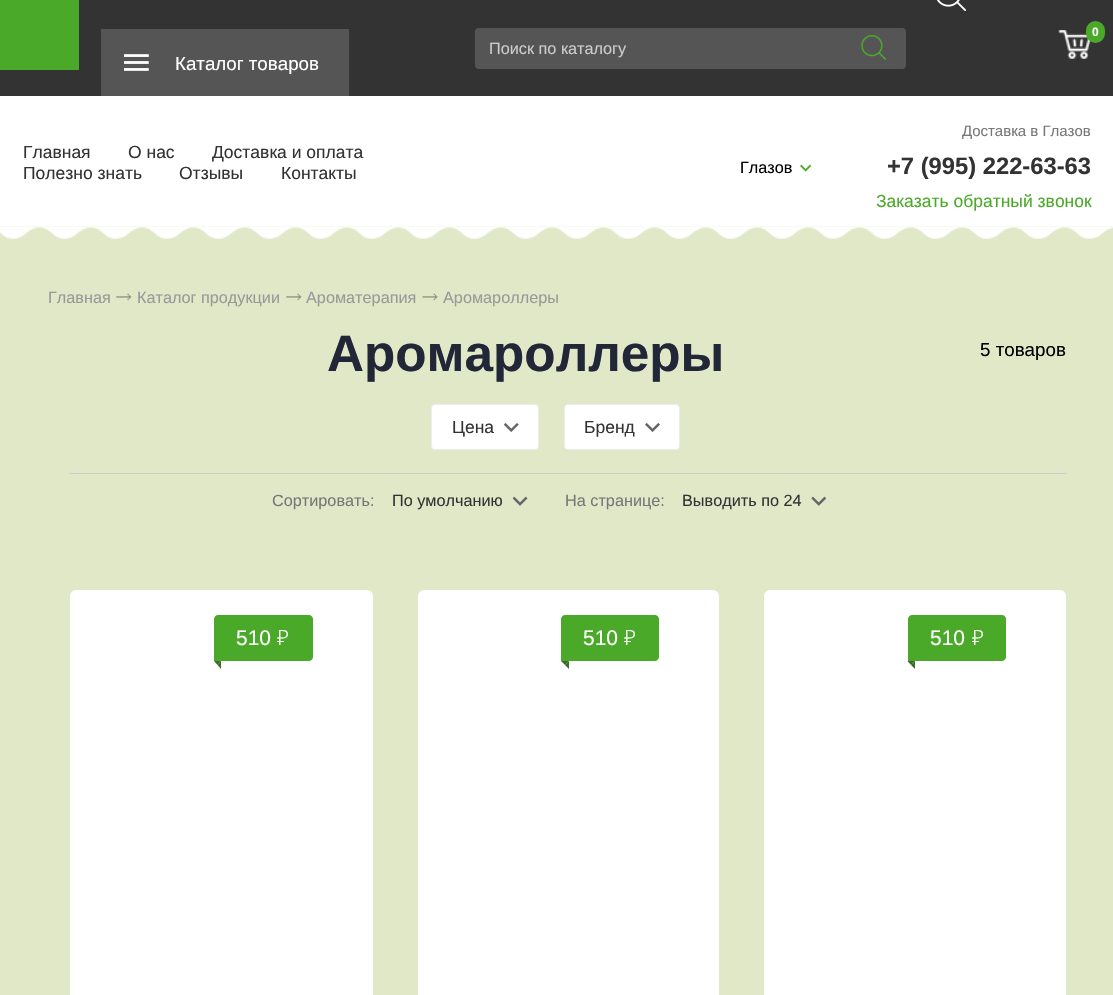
void draw(SkCanvas* canvas) {
	SkPaint fill;
	fill.setAntiAlias(true);
	auto makeFont = [&](const char* family, int weight, float size, bool italic = false) {
		SkFontStyle style(weight, SkFontStyle::kNormal_Width,
			italic ? SkFontStyle::kItalic_Slant : SkFontStyle::kUpright_Slant);
		SkFont result(fontMgr->matchFamilyStyle(family, style), size);
		result.setSubpixel(true);
		return result;
	};
	auto text = [&](const char* s, float x, float y, const SkFont& font) {
		canvas->drawString(s, x, y, font, fill);
	};
	auto box = [&](float l, float t, float r, float b) {
		canvas->drawRect(SkRect::MakeLTRB(l, t, r, b), fill);
	};
	auto roundBox = [&](float l, float t, float r, float b, float radius) {
		canvas->drawRoundRect(SkRect::MakeLTRB(l, t, r, b), radius, radius, fill);
	};
	auto picture = [&](const char* path, float l, float t, float r, float b) {
		auto image = SkImages::DeferredFromEncodedData(SkData::MakeFromFileName(path));
		canvas->drawImageRect(image, SkRect::MakeLTRB(l, t, r, b), SkSamplingOptions());
	};
	canvas->clear(0xFFE0E8C8);
	fill.setColor(0xFF333333);
	box(0, 0, 1113, 96);
	picture("image0.png", 937, 0, 966, 11);
	picture("image1.png", 1058, 30, 1091, 59);
	fill.setColor(0xFF4BA929);
	canvas->drawRoundRect(SkRect::MakeLTRB(1087.5f, 22.5f, 1103.5f, 41.5f), 8, 8, fill);
	fill.setStyle(SkPaint::kStroke_Style);
	fill.setStrokeWidth(3);
	canvas->drawRoundRect(SkRect::MakeLTRB(1087.5f, 22.5f, 1103.5f, 41.5f), 8, 8, fill);
	fill.setStyle(SkPaint::kFill_Style);
	fill.setColor(0xFF555555);
	roundBox(475, 28, 906, 69, 4);
	picture("image2.png", 861, 35, 886, 60);
	fill.setColor(0xFF4BA929);
	box(0, 0, 79, 70);
	fill.setColor(0xFF555555);
	box(101, 29, 349, 96);
	picture("image3.png", 124, 54, 149, 71);
	fill.setColor(0xFFFFFFFF);
	box(0, 96, 1113, 226);
	picture("image4.png", 800, 164, 811, 172);
	picture("image5.png", 0, 226, 1113, 239);
	picture("image6.png", 116, 293, 132, 301);
	picture("image7.png", 286, 293, 302, 301);
	picture("image8.png", 422, 293, 438, 301);
	canvas->drawRoundRect(SkRect::MakeLTRB(431.5f, 404.5f, 538.5f, 449.5f), 3.5f, 3.5f, fill);
	fill.setStyle(SkPaint::kStroke_Style);
	fill.setStrokeWidth(1);
	fill.setColor(0xFFEDEDED);
	canvas->drawRoundRect(SkRect::MakeLTRB(431.5f, 404.5f, 538.5f, 449.5f), 3.5f, 3.5f, fill);
	picture("image9.png", 504, 423, 519, 432);
	fill.setStyle(SkPaint::kFill_Style);
	fill.setColor(0xFFFFFFFF);
	canvas->drawRoundRect(SkRect::MakeLTRB(564.5f, 404.5f, 679.5f, 449.5f), 3.5f, 3.5f, fill);
	fill.setStyle(SkPaint::kStroke_Style);
	fill.setColor(0xFFEDEDED);
	canvas->drawRoundRect(SkRect::MakeLTRB(564.5f, 404.5f, 679.5f, 449.5f), 3.5f, 3.5f, fill);
	picture("image10.png", 645, 423, 660, 432);
	fill.setStyle(SkPaint::kFill_Style);
	fill.setColor(0xFFCCCCCC);
	box(70, 473, 1066, 474);
	picture("image11.png", 513, 496, 528, 506);
	picture("image12.png", 811, 496, 826, 506);
	fill.setColor(0xFFFFFFFF);
	roundBox(70, 590, 373, 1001, 6);
	fill.setColor(0xFF4BA929);
	canvas->drawPath(SkPathBuilder().moveTo(218, 615).lineTo(309, 615).cubicTo(311, 615, 313, 617, 313, 619).lineTo(313, 657).cubicTo(313, 659, 311, 661, 309, 661).lineTo(214, 661).lineTo(214, 619).cubicTo(214, 617, 216, 615, 218, 615).close().detach(), fill);
	fill.setColor(0xFF3B6A2A);
	canvas->drawPath(SkPathBuilder().moveTo(214, 661).lineTo(221, 661).lineTo(217.5f, 665).close().detach(), fill);
	canvas->drawPath(SkPathBuilder().moveTo(221, 661).lineTo(221, 669).lineTo(217.5f, 665).close().detach(), fill);
	fill.setColor(0xFFFFFFFF);
	roundBox(418, 590, 719, 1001, 6);
	fill.setColor(0xFF4BA929);
	canvas->drawPath(SkPathBuilder().moveTo(565, 615).lineTo(655, 615).cubicTo(657, 615, 659, 617, 659, 619).lineTo(659, 657).cubicTo(659, 659, 657, 661, 655, 661).lineTo(561, 661).lineTo(561, 619).cubicTo(561, 617, 563, 615, 565, 615).close().detach(), fill);
	fill.setColor(0xFF3B6A2A);
	canvas->drawPath(SkPathBuilder().moveTo(561, 661).lineTo(569, 661).lineTo(565, 665).close().detach(), fill);
	canvas->drawPath(SkPathBuilder().moveTo(569, 661).lineTo(569, 669).lineTo(565, 665).close().detach(), fill);
	fill.setColor(0xFFFFFFFF);
	roundBox(764, 590, 1066, 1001, 6);
	fill.setColor(0xFF4BA929);
	canvas->drawPath(SkPathBuilder().moveTo(912, 615).lineTo(1002, 615).cubicTo(1004, 615, 1006, 617, 1006, 619).lineTo(1006, 657).cubicTo(1006, 659, 1004, 661, 1002, 661).lineTo(908, 661).lineTo(908, 619).cubicTo(908, 617, 910, 615, 912, 615).close().detach(), fill);
	fill.setColor(0xFF3B6A2A);
	canvas->drawPath(SkPathBuilder().moveTo(907.5f, 661).lineTo(915, 661).lineTo(911, 665).close().detach(), fill);
	canvas->drawPath(SkPathBuilder().moveTo(915, 661).lineTo(915, 669).lineTo(911, 665).close().detach(), fill);
	auto font1 = makeFont("Liberation Sans", 700, 12);
	fill.setColor(0xFFFFFFFF);
	text("0", 1092, 36, font1);
	auto font2 = makeFont("Liberation Sans", 400, 16.25f);
	fill.setColor(0xFFCCCCCC);
	text("Поиск по каталогу", 489, 54, font2);
	auto font3 = makeFont("Liberation Sans", 400, 18.75f);
	fill.setColor(0xFFFFFFFF);
	text("Каталог товаров", 175, 70, font3);
	auto font4 = makeFont("Liberation Sans", 400, 17.5f);
	fill.setColor(0xFF333333);
	text("Главная", 23, 158, font4);
	text("О нас", 128, 158, font4);
	text("Доставка и оплата", 212, 158, font4);
	text("Полезно знать", 23, 179, font4);
	text("Отзывы", 179, 179, font4);
	text("Контакты", 281, 179, font4);
	fill.setColor(0xFF000000);
	text("Глазов", 740, 173, font2);
	auto font5 = makeFont("Liberation Sans", 400, 15);
	fill.setColor(0xFF777777);
	text("Доставка в Глазов", 962, 136, font5);
	auto font6 = makeFont("Liberation Sans", 700, 23.75f);
	fill.setColor(0xFF333333);
	text("+7 (995) 222-63-63", 887, 174, font6);
	fill.setColor(0xFF4BA929);
	text("Заказать обратный звонок", 876, 207, font4);
	fill.setColor(0xFF999999);
	text("Главная", 48, 303, font2);
	text("Каталог продукции", 137, 303, font2);
	text("Ароматерапия", 306, 303, font2);
	text("Аромароллеры", 443, 303, font2);
	auto font7 = makeFont("Liberation Sans", 700, 51.25f);
	fill.setColor(0xFF212737);
	text("Аромароллеры", 327, 371, font7);
	fill.setColor(0xFF000000);
	text("5 товаров", 980, 356, font3);
	fill.setColor(0xFF333333);
	text("Цена", 452, 433, font4);
	text("Бренд", 584, 433, font4);
	fill.setColor(0xFF777777);
	text("Сортировать:", 272, 506, font2);
	fill.setColor(0xFF333333);
	text("По умолчанию", 392, 506, font2);
	fill.setColor(0xFF777777);
	text("На странице:", 565, 506, font2);
	fill.setColor(0xFF333333);
	text("Выводить по 24", 682, 506, font2);
	auto font8 = makeFont("Liberation Sans", 400, 21);
	fill.setColor(0xFFFFFFFF);
	text("510", 236, 645, font8);
	auto font9 = makeFont("Noto Sans", 300, 21);
	text("₽", 277, 645, font9);
	text("510", 583, 645, font8);
	text("₽", 624, 645, font9);
	text("510", 930, 645, font8);
	text("₽", 972, 645, font9);
}
